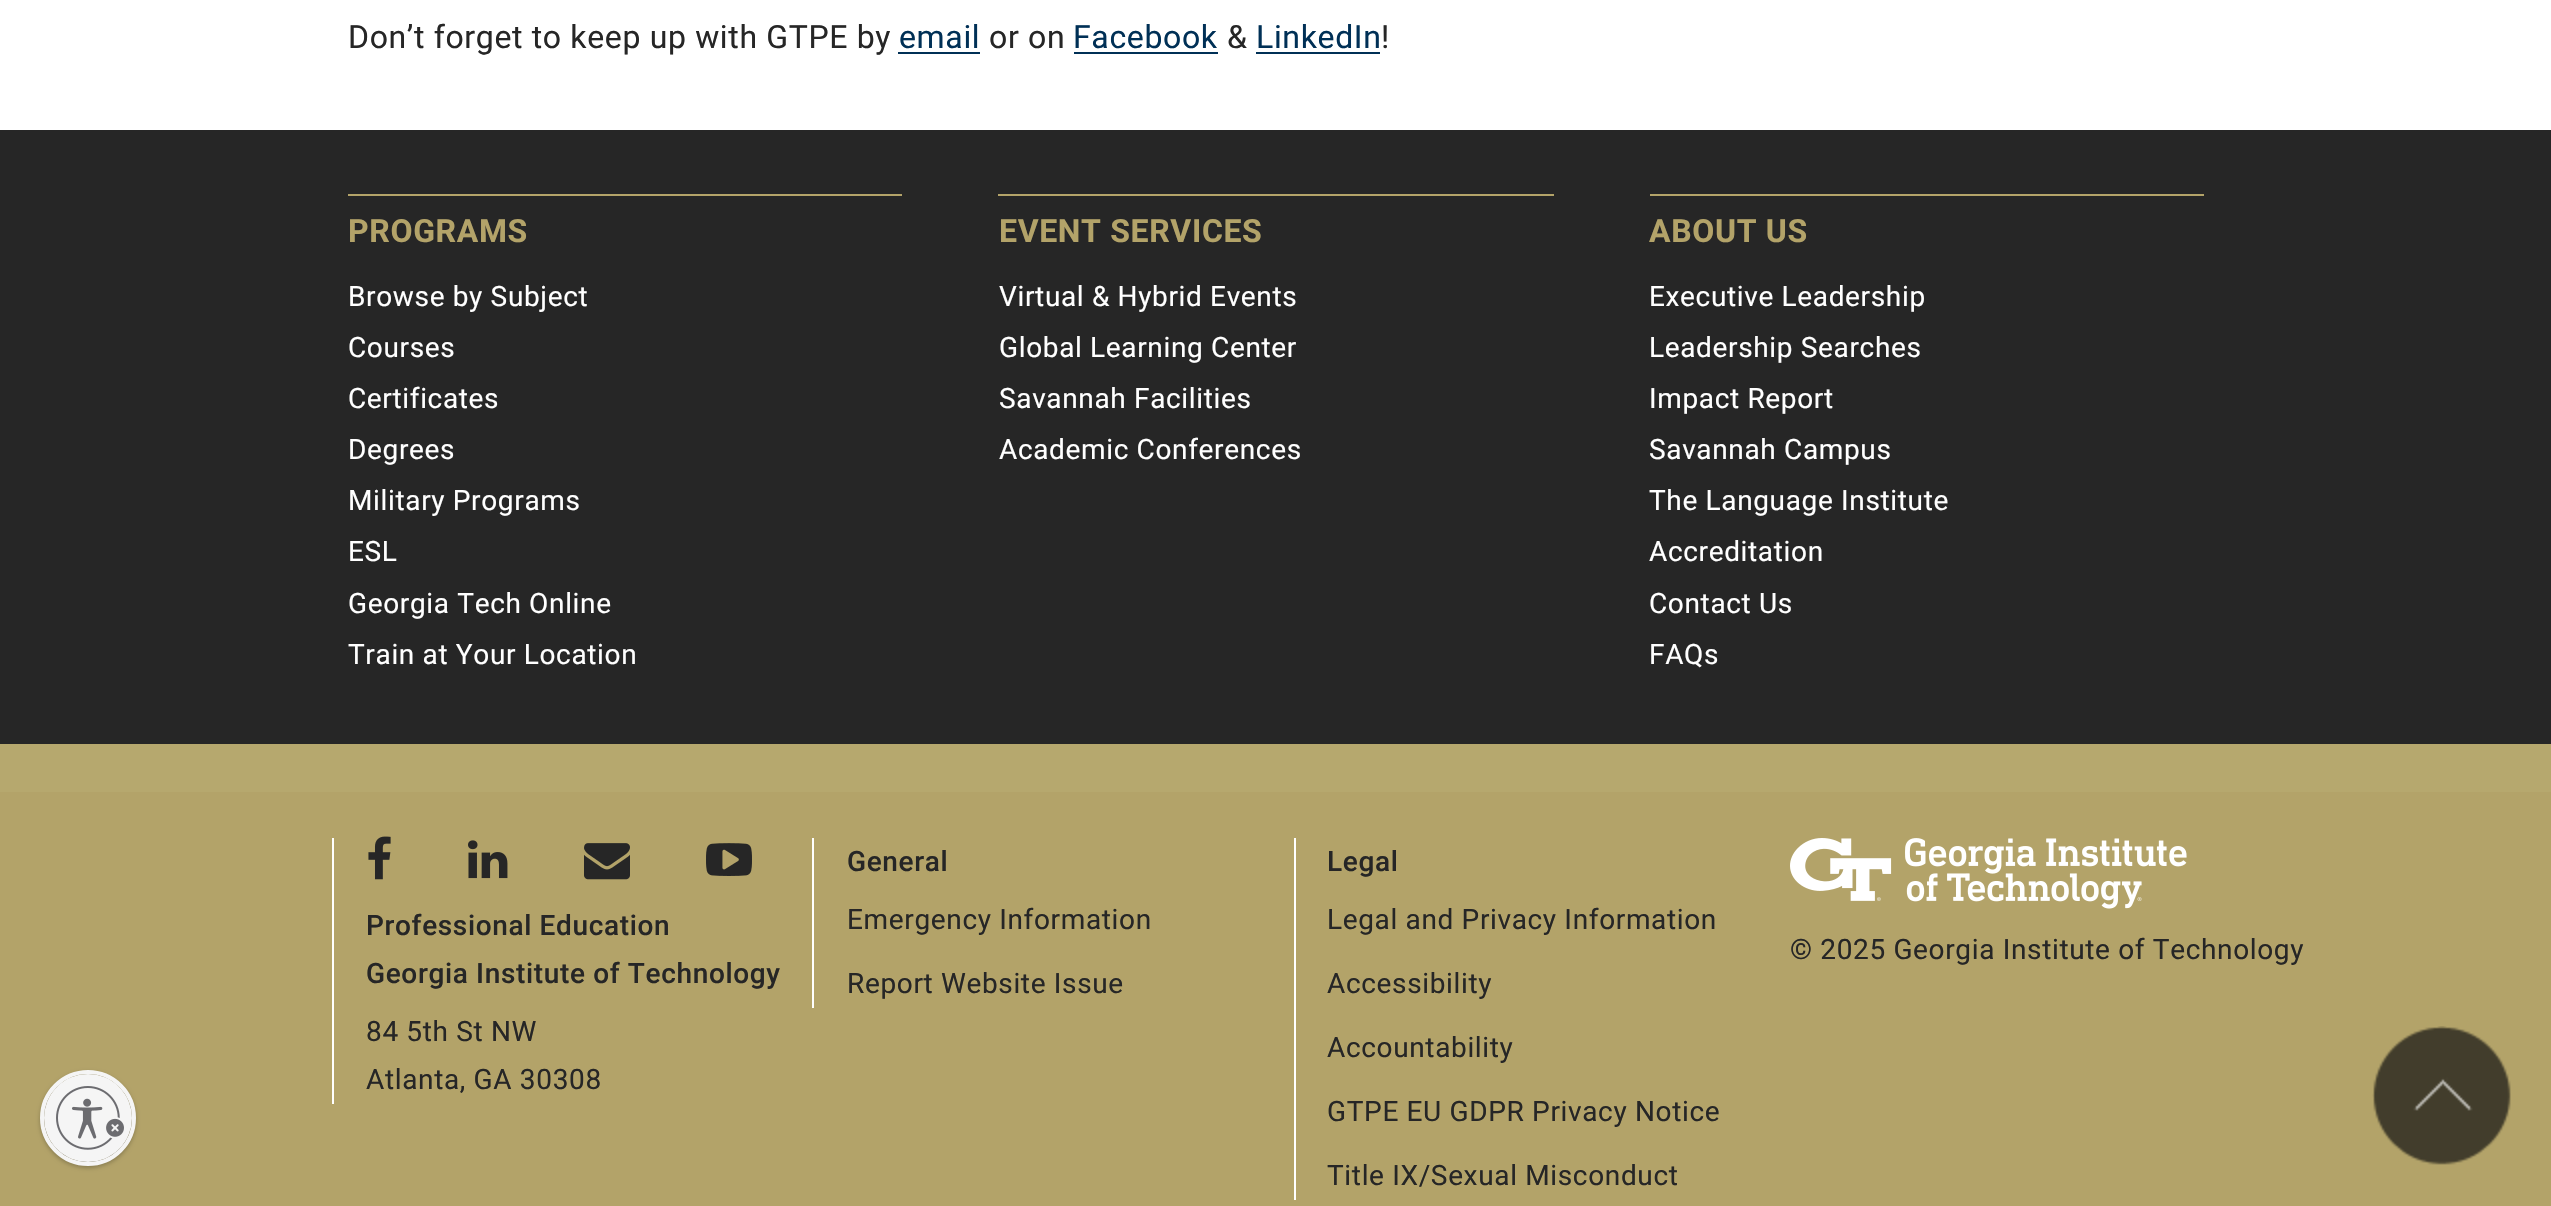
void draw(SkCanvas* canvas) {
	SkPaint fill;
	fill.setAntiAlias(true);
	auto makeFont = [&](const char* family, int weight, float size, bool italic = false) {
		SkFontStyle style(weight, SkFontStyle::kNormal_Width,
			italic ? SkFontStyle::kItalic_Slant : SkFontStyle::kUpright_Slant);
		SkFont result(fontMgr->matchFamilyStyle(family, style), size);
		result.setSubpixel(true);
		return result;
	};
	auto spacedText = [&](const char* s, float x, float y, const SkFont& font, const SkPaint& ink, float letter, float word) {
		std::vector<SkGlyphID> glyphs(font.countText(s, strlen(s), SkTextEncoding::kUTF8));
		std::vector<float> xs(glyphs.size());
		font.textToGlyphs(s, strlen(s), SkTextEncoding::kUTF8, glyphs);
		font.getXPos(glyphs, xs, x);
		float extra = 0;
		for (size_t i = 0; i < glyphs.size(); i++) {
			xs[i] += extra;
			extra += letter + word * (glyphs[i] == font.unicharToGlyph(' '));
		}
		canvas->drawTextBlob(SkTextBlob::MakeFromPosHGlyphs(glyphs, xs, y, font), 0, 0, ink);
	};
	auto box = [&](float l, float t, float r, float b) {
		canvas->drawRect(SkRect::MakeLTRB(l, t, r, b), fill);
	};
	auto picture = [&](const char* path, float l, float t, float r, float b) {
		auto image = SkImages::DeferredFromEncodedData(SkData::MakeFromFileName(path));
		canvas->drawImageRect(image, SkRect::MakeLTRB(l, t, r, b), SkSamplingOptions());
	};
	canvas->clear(0xFFFFFFFF);
	fill.setColor(0xFFB3A369);
	box(0, 792, 2551, 1206);
	fill.setColor(0x3D000000);
	fill.setMaskFilter(SkMaskFilter::MakeBlur(kNormal_SkBlurStyle, 2));
	canvas->drawRoundRect(SkRect::MakeLTRB(40, 1072, 136, 1168), 48, 48, fill);
	fill.setMaskFilter(nullptr);
	fill.setStyle(SkPaint::kStroke_Style);
	fill.setStrokeWidth(4);
	fill.setColor(0xFFF5F5F5);
	canvas->drawCircle(88, 1118, 46, fill);
	canvas->save();
	canvas->clipPath(SkPathBuilder().moveTo(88, 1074).cubicTo(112.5f, 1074, 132, 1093.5f, 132, 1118).cubicTo(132, 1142.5f, 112.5f, 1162, 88, 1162).cubicTo(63.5f, 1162, 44, 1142.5f, 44, 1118).cubicTo(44, 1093.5f, 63.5f, 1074, 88, 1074).close().detach(), true);
	fill.setStyle(SkPaint::kFill_Style);
	fill.setColor(0x3D000000);
	fill.setMaskFilter(SkMaskFilter::MakeBlur(kNormal_SkBlurStyle, 2));
	canvas->drawRoundRect(SkRect::MakeLTRB(44, 1076, 132, 1164), 44, 44, fill);
	fill.setMaskFilter(nullptr);
	canvas->restore();
	fill.setColor(0xFFF5F5F5);
	canvas->drawCircle(88, 1118, 44, fill);
	picture("image0.png", 56, 1086, 124, 1150);
	fill.setColor(0xFF003056);
	box(898, 52, 980, 54);
	box(1074, 52, 1218, 54);
	box(1256, 52, 1380, 54);
	fill.setColor(0xFF262626);
	box(0, 130, 2551, 744);
	fill.setColor(0xFFB3A369);
	box(348, 194, 902, 196);
	box(998, 194, 1554, 196);
	box(1650, 194, 2204, 196);
	fill.setColor(0xFFB6A86E);
	box(0, 744, 2551, 792);
	fill.setColor(0xFFFFFFFF);
	box(332, 838, 334, 1104);
	picture("image1.png", 368, 836, 391, 880);
	picture("image2.png", 468, 840, 508, 879);
	picture("image3.png", 584, 843, 630, 880);
	picture("image4.png", 706, 843, 752, 876);
	box(812, 838, 814, 1008);
	box(1294, 838, 1296, 1200);
	picture("image5.png", 1790, 838, 2187, 909);
	picture("image6.png", 2372, 1026, 2511, 1165);
	auto font1 = makeFont("Roboto", 400, 32);
	fill.setColor(0xFF262626);
	spacedText("Don’t forget to keep up with GTPE by", 348, 48, font1, fill, 0.65f, 0);
	fill.setColor(0xFF003056);
	spacedText("email", 899, 48, font1, fill, 0.65f, 0);
	fill.setColor(0xFF262626);
	spacedText("or on", 989, 48, font1, fill, 0.65f, 0);
	fill.setColor(0xFF003056);
	spacedText("Facebook", 1073, 48, font1, fill, 0.65f, 0);
	fill.setColor(0xFF262626);
	spacedText("&", 1227, 48, font1, fill, 0.65f, 0);
	fill.setColor(0xFF003056);
	spacedText("LinkedIn", 1256, 48, font1, fill, 0.65f, 0);
	fill.setColor(0xFF262626);
	spacedText("!", 1381, 48, font1, fill, 0.65f, 0);
	auto font2 = makeFont("Roboto", 700, 32);
	fill.setColor(0xFFB3A369);
	spacedText("PROGRAMS", 348, 242, font2, fill, 0.65f, 0);
	auto font3 = makeFont("Roboto", 400, 28);
	fill.setColor(0xFFFFFFFF);
	spacedText("Browse by Subject", 348, 306, font3, fill, 0.65f, 0);
	spacedText("Courses", 348, 357, font3, fill, 0.65f, 0);
	spacedText("Certificates", 348, 408, font3, fill, 0.65f, 0);
	spacedText("Degrees", 348, 459, font3, fill, 0.65f, 0);
	spacedText("Military Programs", 348, 510, font3, fill, 0.65f, 0);
	spacedText("ESL", 348, 561, font3, fill, 0.65f, 0);
	spacedText("Georgia Tech Online", 348, 613, font3, fill, 0.65f, 0);
	spacedText("Train at Your Location", 348, 664, font3, fill, 0.65f, 0);
	fill.setColor(0xFFB3A369);
	spacedText("EVENT SERVICES", 999, 242, font2, fill, 0.65f, 0);
	fill.setColor(0xFFFFFFFF);
	spacedText("Virtual & Hybrid Events", 999, 306, font3, fill, 0.65f, 0);
	spacedText("Global Learning Center", 999, 357, font3, fill, 0.65f, 0);
	spacedText("Savannah Facilities", 999, 408, font3, fill, 0.65f, 0);
	spacedText("Academic Conferences", 999, 459, font3, fill, 0.65f, 0);
	fill.setColor(0xFFB3A369);
	spacedText("ABOUT US", 1649, 242, font2, fill, 0.65f, 0);
	fill.setColor(0xFFFFFFFF);
	spacedText("Executive Leadership", 1649, 306, font3, fill, 0.65f, 0);
	spacedText("Leadership Searches", 1649, 357, font3, fill, 0.65f, 0);
	spacedText("Impact Report", 1649, 408, font3, fill, 0.65f, 0);
	spacedText("Savannah Campus", 1649, 459, font3, fill, 0.65f, 0);
	spacedText("The Language Institute", 1649, 510, font3, fill, 0.65f, 0);
	spacedText("Accreditation", 1649, 561, font3, fill, 0.65f, 0);
	spacedText("Contact Us", 1649, 613, font3, fill, 0.65f, 0);
	spacedText("FAQs", 1649, 664, font3, fill, 0.65f, 0);
	auto font4 = makeFont("Roboto", 500, 28);
	fill.setColor(0xFF262626);
	spacedText("Professional Education", 366, 935, font4, fill, 0.65f, 0);
	spacedText("Georgia Institute of Technology", 366, 983, font4, fill, 0.65f, 0);
	spacedText("84 5th St NW", 366, 1041, font3, fill, 0.65f, 0);
	spacedText("Atlanta, GA 30308", 366, 1089, font3, fill, 0.65f, 0);
	spacedText("General", 847, 871, font4, fill, 0.65f, 0);
	spacedText("Emergency Information", 847, 929, font3, fill, 0.65f, 0);
	spacedText("Report Website Issue", 847, 993, font3, fill, 0.65f, 0);
	spacedText("Legal", 1327, 871, font4, fill, 0.65f, 0);
	spacedText("Legal and Privacy Information", 1327, 929, font3, fill, 0.65f, 0);
	spacedText("Accessibility", 1327, 993, font3, fill, 0.65f, 0);
	spacedText("Accountability", 1327, 1057, font3, fill, 0.65f, 0);
	spacedText("GTPE EU GDPR Privacy Notice", 1327, 1121, font3, fill, 0.65f, 0);
	spacedText("Title IX/Sexual Misconduct", 1327, 1185, font3, fill, 0.65f, 0);
	spacedText("© 2025 Georgia Institute of Technology", 1790, 959, font3, fill, 0.65f, 0);
}
